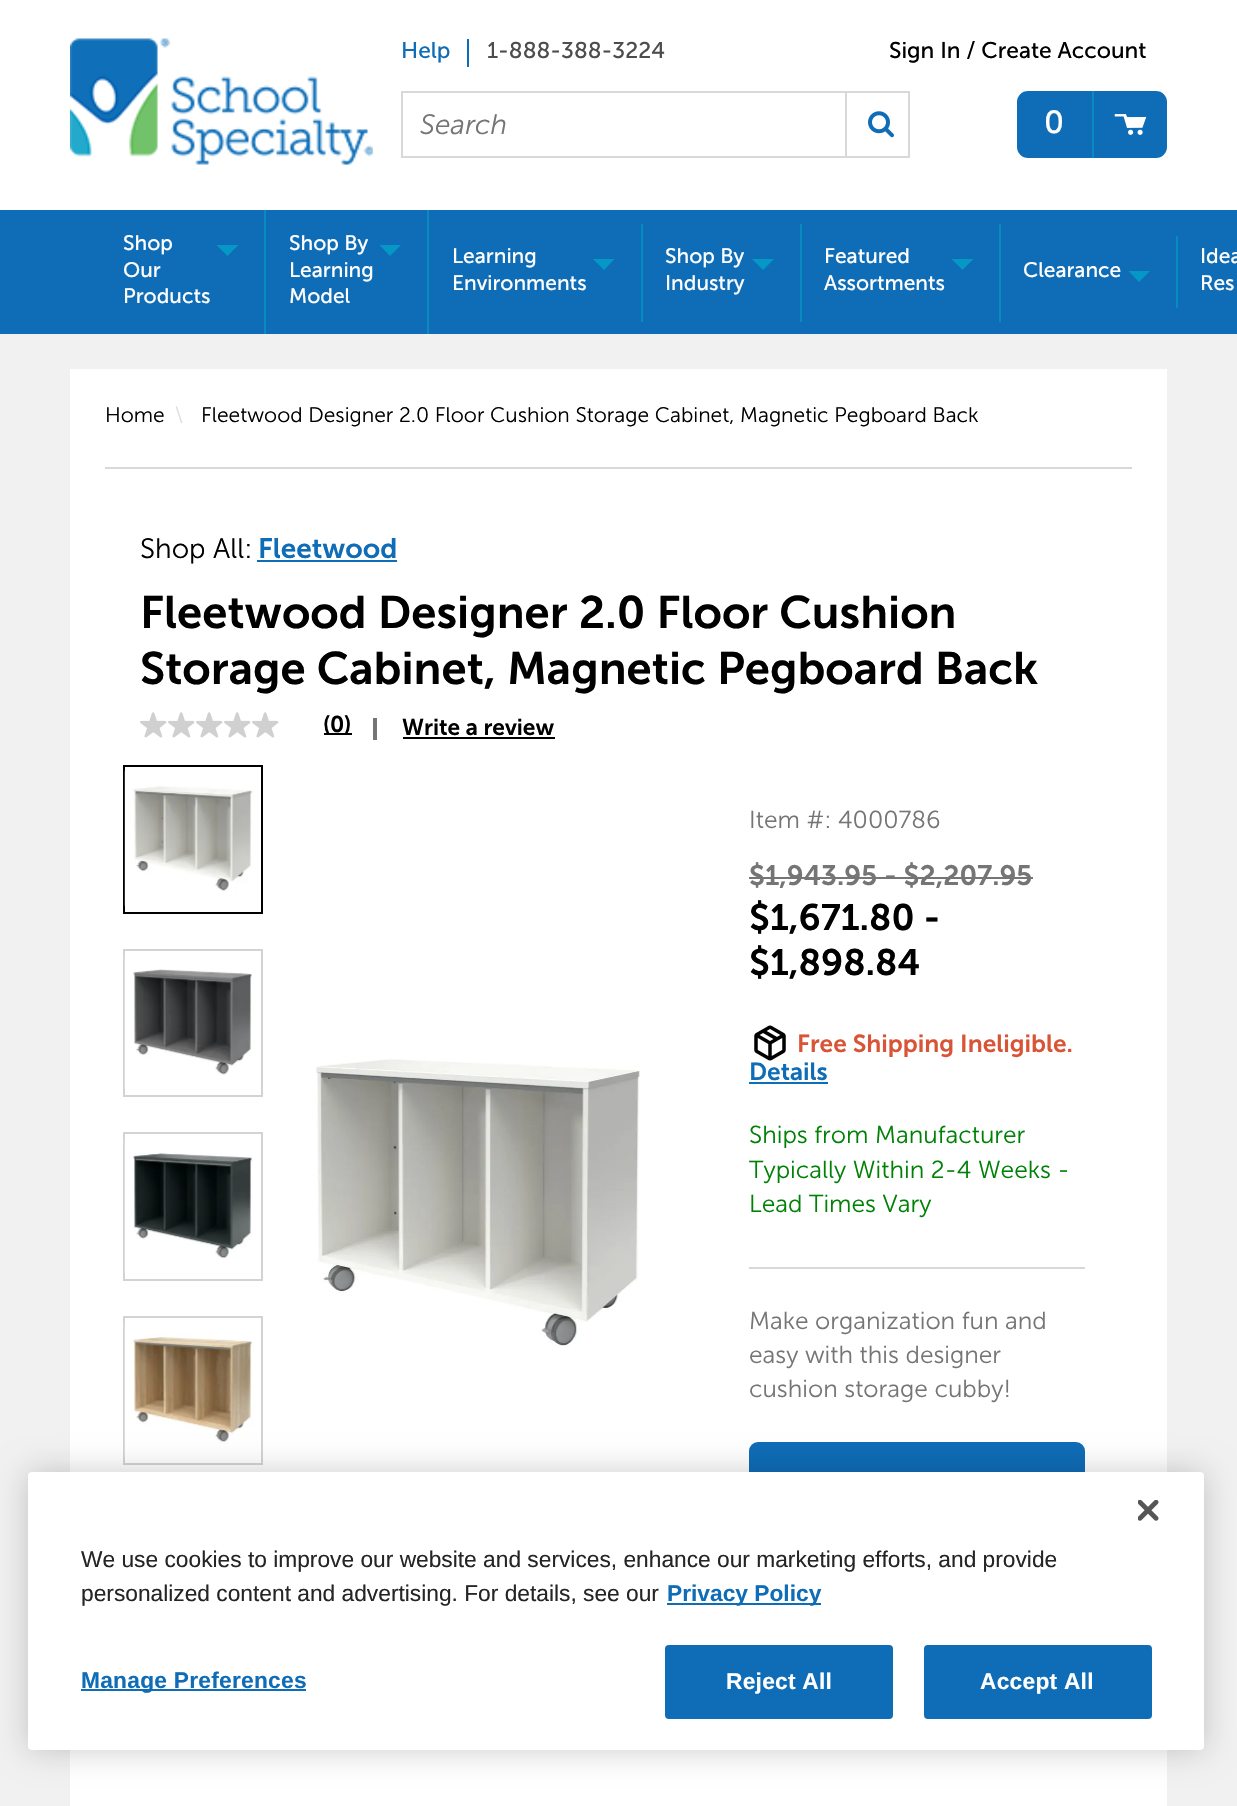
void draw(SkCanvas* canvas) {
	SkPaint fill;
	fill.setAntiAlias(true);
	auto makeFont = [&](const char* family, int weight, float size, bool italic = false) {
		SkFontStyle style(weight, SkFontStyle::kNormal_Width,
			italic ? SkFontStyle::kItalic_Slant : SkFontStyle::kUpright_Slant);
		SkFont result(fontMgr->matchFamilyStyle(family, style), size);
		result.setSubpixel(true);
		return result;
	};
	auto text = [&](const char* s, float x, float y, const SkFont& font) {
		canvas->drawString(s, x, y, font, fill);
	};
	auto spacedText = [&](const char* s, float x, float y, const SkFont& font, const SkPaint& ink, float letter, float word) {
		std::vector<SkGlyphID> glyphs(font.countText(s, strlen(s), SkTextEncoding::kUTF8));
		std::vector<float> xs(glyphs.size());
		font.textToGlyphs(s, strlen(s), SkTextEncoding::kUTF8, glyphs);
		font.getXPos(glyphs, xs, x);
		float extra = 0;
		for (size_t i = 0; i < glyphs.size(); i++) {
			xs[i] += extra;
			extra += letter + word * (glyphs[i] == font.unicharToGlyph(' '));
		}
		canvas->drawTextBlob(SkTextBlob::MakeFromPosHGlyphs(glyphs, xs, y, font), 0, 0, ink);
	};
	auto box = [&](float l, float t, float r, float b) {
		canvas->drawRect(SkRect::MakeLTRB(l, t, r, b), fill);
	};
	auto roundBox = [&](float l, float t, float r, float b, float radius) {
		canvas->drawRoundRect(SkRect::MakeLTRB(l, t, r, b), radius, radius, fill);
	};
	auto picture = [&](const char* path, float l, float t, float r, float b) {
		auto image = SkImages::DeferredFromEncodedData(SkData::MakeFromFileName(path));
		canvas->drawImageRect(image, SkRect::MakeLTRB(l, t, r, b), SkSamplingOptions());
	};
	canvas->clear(0xFFF1F1F1);
	fill.setColor(0xFFFFFFFF);
	box(0, 0, 1237, 210);
	picture("image0.png", 70, 38, 373, 165);
	fill.setColor(0xFF0F6CB6);
	box(467, 39, 469, 67);
	fill.setStyle(SkPaint::kStroke_Style);
	fill.setStrokeWidth(2);
	fill.setColor(0xFFD8D8D8);
	canvas->drawRect(SkRect::MakeLTRB(402, 92, 909, 157), fill);
	fill.setStyle(SkPaint::kFill_Style);
	box(845, 93, 847, 156);
	picture("image1.png", 868, 111, 894, 138);
	fill.setColor(0xFF0F6CB6);
	roundBox(1017, 91, 1167, 158, 11);
	fill.setColor(0xFF088BC1);
	box(1092, 91, 1094, 158);
	picture("image2.png", 1114, 114, 1147, 135);
	fill.setColor(0xFF0F6CB6);
	box(0, 210, 1237, 334);
	fill.setColor(0xFF088BC1);
	box(264, 210, 266, 334);
	fill.setColor(0xFF0597C5);
	canvas->drawPath(SkPathBuilder().moveTo(216.5f, 245).lineTo(238.5f, 245).lineTo(227.5f, 256).close().detach(), fill);
	fill.setColor(0xFF088BC1);
	box(427, 210, 429, 334);
	fill.setColor(0xFF0597C5);
	canvas->drawPath(SkPathBuilder().moveTo(379.5f, 245).lineTo(401, 245).lineTo(390, 256).close().detach(), fill);
	fill.setColor(0xFF088BC1);
	box(641, 224, 643, 322);
	fill.setColor(0xFF0597C5);
	canvas->drawPath(SkPathBuilder().moveTo(593, 259).lineTo(614.5f, 259).lineTo(604, 270).close().detach(), fill);
	fill.setColor(0xFF088BC1);
	box(800, 224, 802, 322);
	fill.setColor(0xFF0597C5);
	canvas->drawPath(SkPathBuilder().moveTo(752, 259).lineTo(774, 259).lineTo(763, 270).close().detach(), fill);
	fill.setColor(0xFF088BC1);
	box(999, 224, 1001, 322);
	fill.setColor(0xFF0597C5);
	canvas->drawPath(SkPathBuilder().moveTo(951.5f, 259).lineTo(973.5f, 259).lineTo(962.5f, 270).close().detach(), fill);
	fill.setColor(0xFF088BC1);
	box(1176, 236, 1178, 308);
	fill.setColor(0xFF0597C5);
	canvas->drawPath(SkPathBuilder().moveTo(1128.5f, 271).lineTo(1150, 271).lineTo(1139, 282).close().detach(), fill);
	fill.setColor(0xFFFFFFFF);
	box(70, 369, 1167, 1806);
	fill.setColor(0xFFD8D8D8);
	box(105, 467, 1132, 469);
	fill.setColor(0xFF0F6CB6);
	box(257, 560, 397, 562);
	picture("image3.png", 140, 712, 167, 738);
	picture("image3.png", 168, 712, 195, 738);
	picture("image3.png", 196, 712, 223, 738);
	picture("image3.png", 224, 712, 251, 738);
	picture("image3.png", 252, 712, 279, 738);
	fill.setColor(0xFF000000);
	box(324, 733, 352, 735);
	fill.setColor(0xFF757575);
	box(373, 718, 377, 740);
	fill.setColor(0xFF000000);
	box(403, 737, 555, 739);
	fill.setStyle(SkPaint::kStroke_Style);
	canvas->drawRect(SkRect::MakeLTRB(124, 766, 262, 913), fill);
	picture("image4.png", 124, 770, 253, 906);
	fill.setColor(0xFFD3D3D3);
	canvas->drawRect(SkRect::MakeLTRB(124, 950, 262, 1096), fill);
	picture("image5.png", 124, 955, 252, 1089);
	canvas->drawRect(SkRect::MakeLTRB(124, 1133, 262, 1280), fill);
	picture("image6.png", 124, 1138, 253, 1273);
	canvas->drawRect(SkRect::MakeLTRB(124, 1317, 262, 1464), fill);
	picture("image7.png", 124, 1322, 253, 1457);
	picture("image8.png", 316, 1059, 640, 1346);
	fill.setStyle(SkPaint::kFill_Style);
	fill.setColor(0xFF757575);
	box(749, 877, 1033, 879);
	picture("image9.png", 754, 1025, 786, 1061);
	fill.setColor(0xFF0F6CB6);
	box(749, 1082, 828, 1084);
	fill.setColor(0xFFD8D8D8);
	box(749, 1267, 1085, 1269);
	fill.setColor(0xFF0F6CB6);
	canvas->drawRoundRect(SkRect::MakeLTRB(750, 1443, 1084, 1529), 8, 8, fill);
	fill.setStyle(SkPaint::kStroke_Style);
	canvas->drawRoundRect(SkRect::MakeLTRB(750, 1443, 1084, 1529), 8, 8, fill);
	fill.setStyle(SkPaint::kFill_Style);
	fill.setColor(0x33000000);
	fill.setMaskFilter(SkMaskFilter::MakeBlur(kNormal_SkBlurStyle, 16));
	canvas->drawRoundRect(SkRect::MakeLTRB(28, 1472, 1204, 1750), 4, 4, fill);
	fill.setMaskFilter(nullptr);
	fill.setColor(0xFFFFFFFF);
	roundBox(28, 1472, 1204, 1750, 4);
	picture("image10.png", 1138, 1500, 1159, 1521);
	fill.setColor(0xFF0F6CB6);
	box(667, 1603, 821, 1605);
	box(81, 1689, 306, 1691);
	canvas->drawRoundRect(SkRect::MakeLTRB(666, 1646, 892, 1718), 3, 3, fill);
	fill.setStyle(SkPaint::kStroke_Style);
	canvas->drawRoundRect(SkRect::MakeLTRB(666, 1646, 892, 1718), 3, 3, fill);
	fill.setStyle(SkPaint::kFill_Style);
	canvas->drawRoundRect(SkRect::MakeLTRB(925, 1646, 1151, 1718), 3, 3, fill);
	fill.setStyle(SkPaint::kStroke_Style);
	canvas->drawRoundRect(SkRect::MakeLTRB(925, 1646, 1151, 1718), 3, 3, fill);
	auto font1 = makeFont("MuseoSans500", 400, 22.75f);
	fill.setStyle(SkPaint::kFill_Style);
	text("Help", 401, 58, font1);
	fill.setColor(0xFF4D4D4D);
	text("1-888-388-3224", 487, 58, font1);
	fill.setColor(0xFF000000);
	text("Sign In / Create Account", 889, 58, font1);
	auto font2 = makeFont("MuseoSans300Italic", 400, 28);
	fill.setColor(0xFF757575);
	text("Search", 420, 134, font2);
	auto font3 = makeFont("MuseoSans500", 400, 32);
	fill.setColor(0xFFFFFFFF);
	text("0", 1044, 133, font3);
	auto font4 = makeFont("MuseoSans500", 400, 21);
	text("Shop", 123, 250, font4);
	text("Our", 123, 277, font4);
	text("Products", 123, 303, font4);
	text("Shop By", 289, 250, font4);
	text("Learning", 289, 277, font4);
	text("Model", 289, 303, font4);
	text("Learning", 452, 263, font4);
	text("Environments", 452, 290, font4);
	text("Shop By", 665, 263, font4);
	text("Industry", 665, 290, font4);
	text("Featured", 824, 263, font4);
	text("Assortments", 824, 290, font4);
	text("Clearance", 1023, 277, font4);
	text("Idea", 1200, 263, font4);
	text("Res", 1200, 290, font4);
	auto font5 = makeFont("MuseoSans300", 400, 21);
	fill.setColor(0xFF000000);
	text("Home", 105, 422, font5);
	fill.setColor(0xFFDEDEDE);
	text("\\", 175, 422, font5);
	fill.setColor(0xFF000000);
	text("Fleetwood Designer 2.0 Floor Cushion Storage Cabinet, Magnetic Pegboard Back", 201, 422, font5);
	auto font6 = makeFont("MuseoSans300", 400, 28);
	text("Shop All:", 140, 558, font6);
	auto font7 = makeFont("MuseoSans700", 400, 28);
	fill.setColor(0xFF0F6CB6);
	text("Fleetwood", 258, 558, font7);
	auto font8 = makeFont("MuseoSans700", 400, 45.5f);
	fill.setColor(0xFF000000);
	text("Fleetwood Designer 2.0 Floor Cushion", 140, 628, font8);
	text("Storage Cabinet, Magnetic Pegboard Back", 140, 684, font8);
	auto font9 = makeFont("MuseoSans700", 400, 22.75f);
	text("(0)", 323, 732, font9);
	text("Write a review", 402, 735, font9);
	auto font10 = makeFont("MuseoSans300", 400, 24.5f);
	fill.setColor(0xFF757575);
	text("Item #: 4000786", 749, 828, font10);
	text("$1,943.95 - $2,207.95", 749, 885, font7);
	auto font11 = makeFont("MuseoSans700", 400, 36.75f);
	fill.setColor(0xFF000000);
	text("$1,671.80 -", 749, 930, font11);
	text("$1,898.84", 749, 975, font11);
	auto font12 = makeFont("MuseoSans700", 400, 24.5f);
	fill.setColor(0xFFD95436);
	text("Free Shipping Ineligible.", 797, 1052, font12);
	fill.setColor(0xFF0F6CB6);
	text("Details", 749, 1080, font12);
	fill.setColor(0xFF008105);
	text("Ships from Manufacturer", 749, 1143, font10);
	text("Typically Within 2-4 Weeks -", 749, 1178, font10);
	text("Lead Times Vary", 749, 1212, font10);
	fill.setColor(0xFF757575);
	text("Make organization fun and", 749, 1329, font10);
	text("easy with this designer", 749, 1363, font10);
	text("cushion storage cubby!", 749, 1397, font10);
	auto font13 = makeFont("Liberation Sans", 400, 22.75f);
	fill.setColor(0xFF252525);
	text("We use cookies to improve our website and services, enhance our marketing efforts, and provide", 81, 1567, font13);
	text("personalized content and advertising. For details, see our", 81, 1601, font13);
	auto font14 = makeFont("Liberation Sans", 700, 22.75f);
	fill.setColor(0xFF0F6CB6);
	text("Privacy Policy", 667, 1601, font14);
	spacedText("Manage Preferences", 81, 1688, font14, fill, 0.25f, 0);
	fill.setColor(0xFFFFFFFF);
	spacedText("Reject All", 726, 1689, font14, fill, 0.25f, 0);
	spacedText("Accept All", 980, 1689, font14, fill, 0.25f, 0);
}
